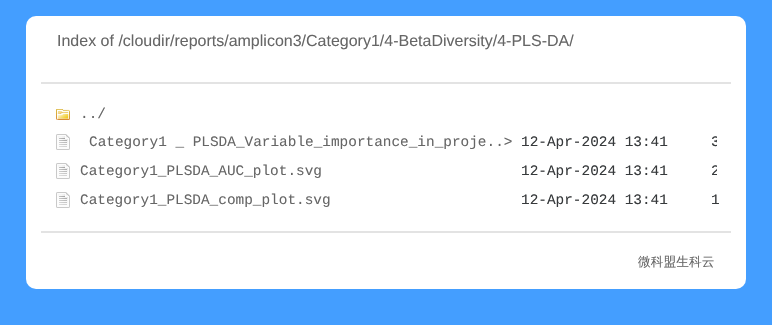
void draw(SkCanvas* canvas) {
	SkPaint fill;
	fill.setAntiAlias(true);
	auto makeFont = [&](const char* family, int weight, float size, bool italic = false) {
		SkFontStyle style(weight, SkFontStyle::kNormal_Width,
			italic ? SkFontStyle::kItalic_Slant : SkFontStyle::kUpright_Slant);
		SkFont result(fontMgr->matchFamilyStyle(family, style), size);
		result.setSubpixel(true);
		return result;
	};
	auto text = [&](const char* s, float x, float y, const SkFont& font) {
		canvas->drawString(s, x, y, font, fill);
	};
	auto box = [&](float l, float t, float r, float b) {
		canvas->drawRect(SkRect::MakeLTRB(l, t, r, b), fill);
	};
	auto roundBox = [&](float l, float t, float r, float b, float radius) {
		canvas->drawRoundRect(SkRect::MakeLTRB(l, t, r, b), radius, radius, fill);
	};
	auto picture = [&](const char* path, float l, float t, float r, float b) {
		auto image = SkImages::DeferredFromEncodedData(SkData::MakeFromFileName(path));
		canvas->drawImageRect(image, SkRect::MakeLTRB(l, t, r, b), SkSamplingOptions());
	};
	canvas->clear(0xFF449EFF);
	fill.setColor(0xFFFFFFFF);
	roundBox(26, 16, 746, 289, 10);
	fill.setColor(0xFFE3E3E3);
	box(41, 82, 731, 84);
	picture("image0.png", 56, 109, 70, 120);
	picture("image1.png", 56, 134, 70, 150);
	picture("image1.png", 56, 163, 70, 179);
	picture("image1.png", 56, 192, 70, 208);
	box(41, 231, 731, 233);
	auto font1 = makeFont("Liberation Sans", 400, 16);
	fill.setColor(0xFF666666);
	text("Index of /cloudir/reports/amplicon3/Category1/4-BetaDiversity/4-PLS-DA/", 57, 46, font1);
	auto font2 = makeFont("Liberation Mono", 400, 14.4f);
	text("../", 80, 118, font2);
	text("Category1 _ PLSDA_Variable_importance_in_proje..>", 89, 146, font2);
	canvas->save();
	canvas->clipRect(SkRect::MakeLTRB(55, 100, 717, 215));
	fill.setColor(0xFF373A3C);
	text("12-Apr-2024 13:41     3", 521, 146, font2);
	canvas->restore();
	fill.setColor(0xFF666666);
	text("Category1_PLSDA_AUC_plot.svg", 80, 175, font2);
	canvas->save();
	canvas->clipRect(SkRect::MakeLTRB(55, 100, 717, 215));
	fill.setColor(0xFF373A3C);
	text("12-Apr-2024 13:41     2", 521, 175, font2);
	canvas->restore();
	fill.setColor(0xFF666666);
	text("Category1_PLSDA_comp_plot.svg", 80, 204, font2);
	fill.setColor(0xFF373A3C);
	text("12-Apr-2024 13:41     1", 521, 204, font2);
	auto font3 = makeFont("WenQuanYi Zen Hei", 500, 12.75f);
	fill.setColor(0xFF666666);
	text("微科盟生科云", 638, 266, font3);
}
